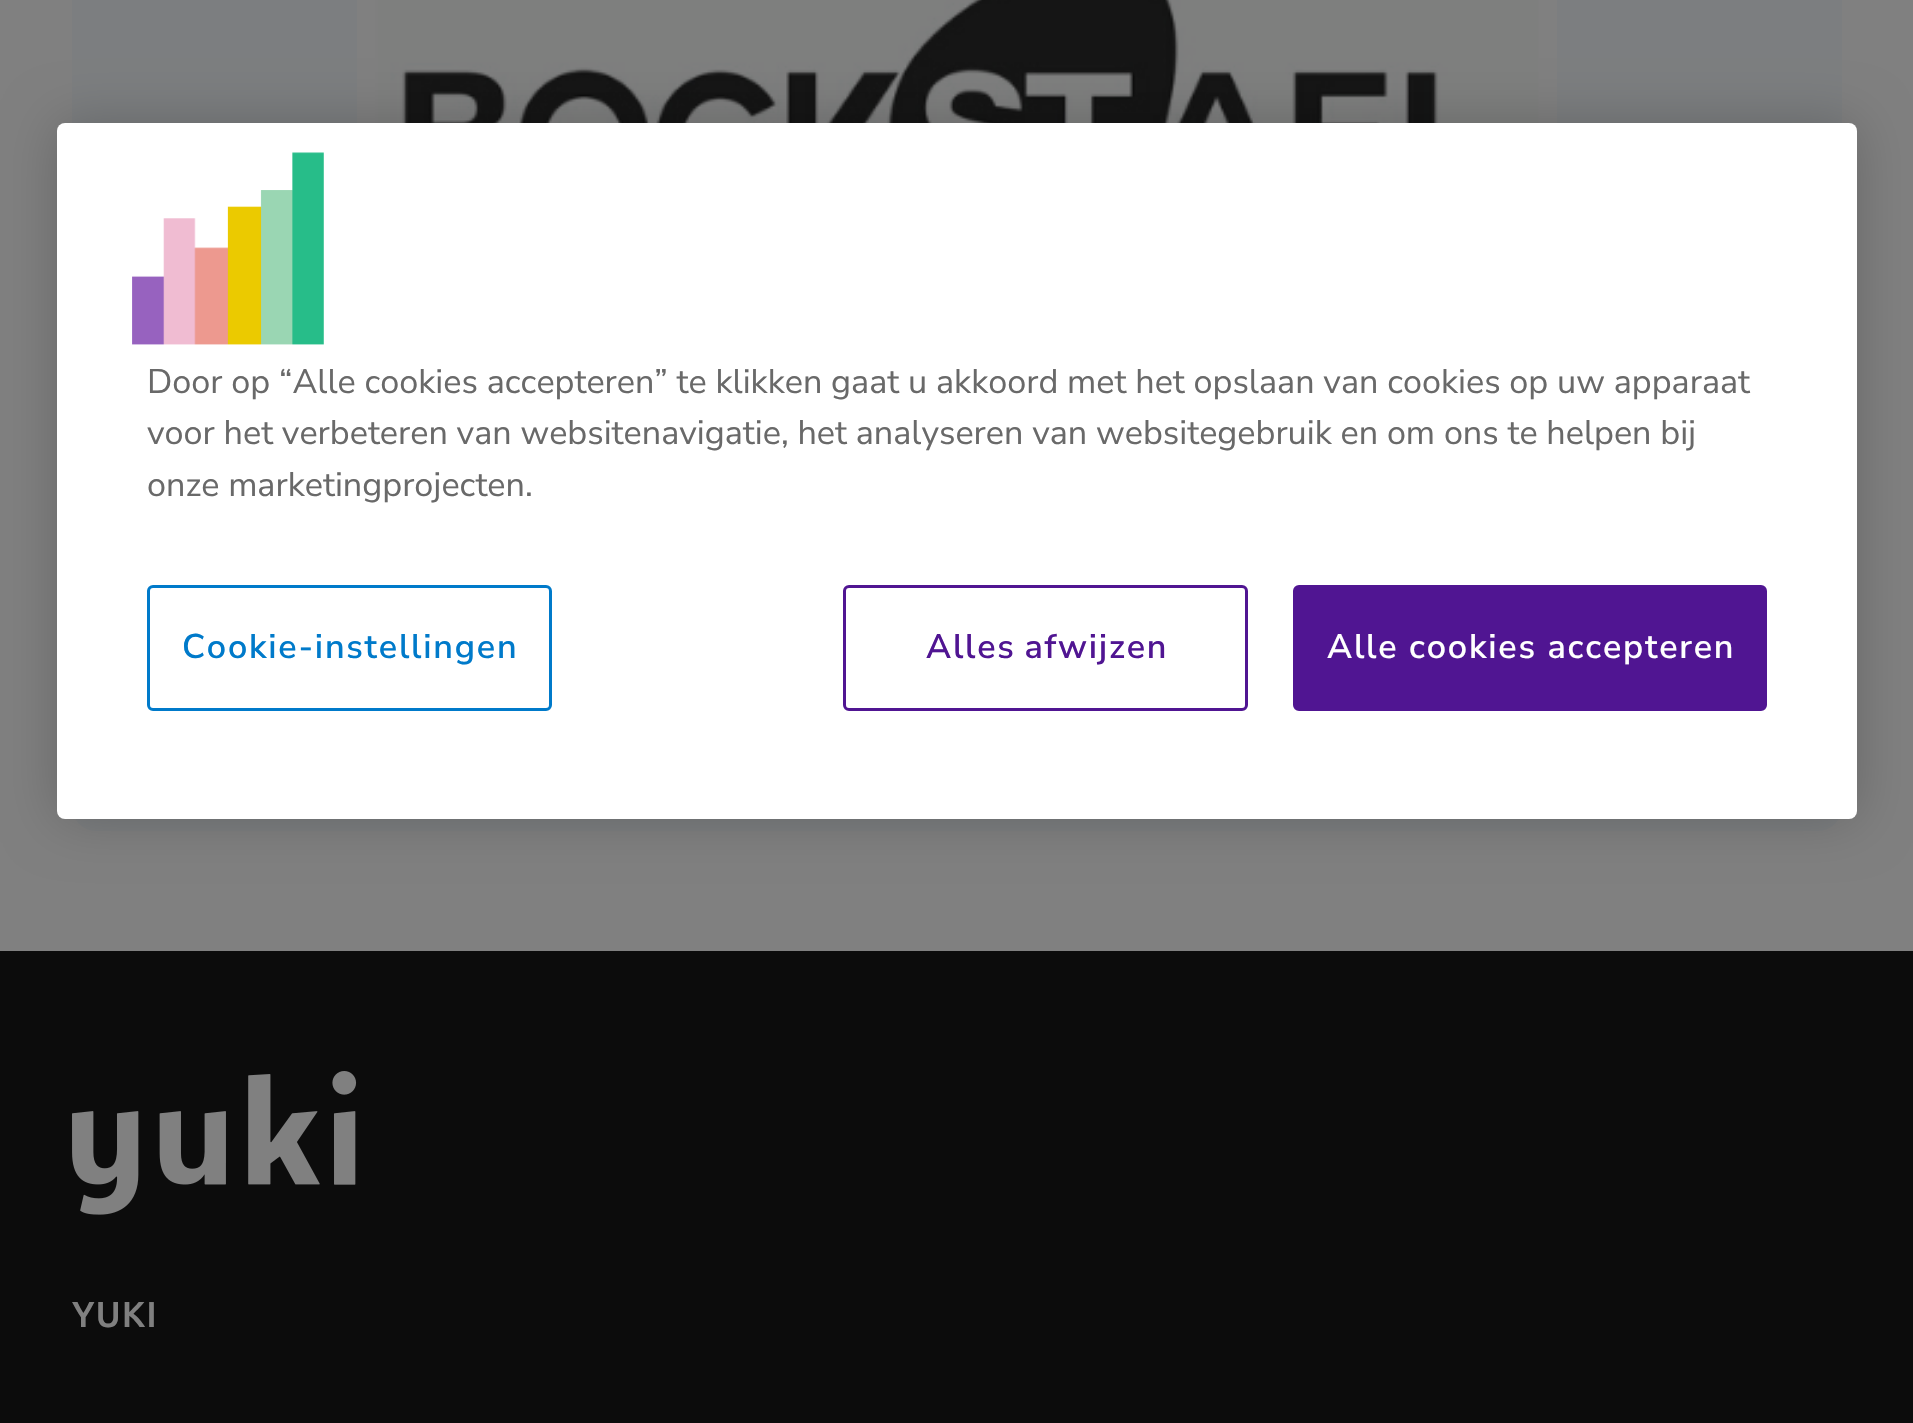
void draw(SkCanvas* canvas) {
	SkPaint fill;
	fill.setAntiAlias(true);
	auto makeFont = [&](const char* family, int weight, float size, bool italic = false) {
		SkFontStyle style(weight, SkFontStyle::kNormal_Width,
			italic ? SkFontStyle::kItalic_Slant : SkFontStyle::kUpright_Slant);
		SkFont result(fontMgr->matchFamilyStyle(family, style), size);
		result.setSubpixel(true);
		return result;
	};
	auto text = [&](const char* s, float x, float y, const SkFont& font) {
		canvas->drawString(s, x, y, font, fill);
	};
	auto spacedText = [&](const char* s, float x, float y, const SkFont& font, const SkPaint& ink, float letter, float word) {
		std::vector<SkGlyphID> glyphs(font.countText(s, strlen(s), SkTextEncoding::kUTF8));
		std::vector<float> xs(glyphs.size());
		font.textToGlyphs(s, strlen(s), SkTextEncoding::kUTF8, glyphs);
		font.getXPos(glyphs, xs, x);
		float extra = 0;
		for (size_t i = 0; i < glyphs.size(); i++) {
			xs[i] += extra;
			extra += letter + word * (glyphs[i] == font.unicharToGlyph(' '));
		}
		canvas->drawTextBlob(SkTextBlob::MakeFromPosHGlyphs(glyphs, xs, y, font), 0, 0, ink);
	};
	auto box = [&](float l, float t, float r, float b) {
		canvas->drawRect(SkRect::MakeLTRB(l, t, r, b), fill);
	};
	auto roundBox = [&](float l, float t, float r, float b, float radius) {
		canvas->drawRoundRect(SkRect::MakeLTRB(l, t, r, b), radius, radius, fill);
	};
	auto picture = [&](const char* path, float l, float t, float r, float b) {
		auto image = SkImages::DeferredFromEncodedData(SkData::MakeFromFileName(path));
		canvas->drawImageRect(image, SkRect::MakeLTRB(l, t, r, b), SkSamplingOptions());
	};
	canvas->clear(0xFF808080);
	fill.setColor(0xFF7C7E80);
	roundBox(72, -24, 1842, 831, 24);
	picture("image1.png", 357, 0, 1557, 123);
	fill.setColor(0x33000000);
	fill.setMaskFilter(SkMaskFilter::MakeBlur(kNormal_SkBlurStyle, 27));
	canvas->drawRoundRect(SkRect::MakeLTRB(57, 123, 1857, 819), 8, 8, fill);
	fill.setMaskFilter(nullptr);
	fill.setColor(0xFFFFFFFF);
	roundBox(57, 123, 1857, 819, 8);
	picture("image0.png", 132, 152, 324, 345);
	fill.setStyle(SkPaint::kStroke_Style);
	fill.setStrokeWidth(3);
	fill.setColor(0xFF007ACA);
	canvas->drawRoundRect(SkRect::MakeLTRB(148.5f, 586.5f, 550.5f, 709.5f), 4.5f, 4.5f, fill);
	fill.setColor(0xFF501592);
	canvas->drawRoundRect(SkRect::MakeLTRB(844.5f, 586.5f, 1246.5f, 709.5f), 4.5f, 4.5f, fill);
	fill.setStyle(SkPaint::kFill_Style);
	canvas->drawRoundRect(SkRect::MakeLTRB(1294.5f, 586.5f, 1765.5f, 709.5f), 4.5f, 4.5f, fill);
	fill.setStyle(SkPaint::kStroke_Style);
	canvas->drawRoundRect(SkRect::MakeLTRB(1294.5f, 586.5f, 1765.5f, 709.5f), 4.5f, 4.5f, fill);
	fill.setStyle(SkPaint::kFill_Style);
	fill.setColor(0xFF0C0C0C);
	box(0, 951, 1913, 1423);
	picture("image2.png", 72, 1071, 357, 1215);
	auto font1 = makeFont("Nunito Sans", 200, 34.15f);
	fill.setColor(0xFF696969);
	text("Door op “Alle cookies accepteren” te klikken gaat u akkoord met het opslaan van cookies op uw apparaat", 147, 393, font1);
	text("voor het verbeteren van websitenavigatie, het analyseren van websitegebruik en om ons te helpen bij", 147, 444, font1);
	text("onze marketingprojecten.", 147, 496, font1);
	auto font2 = makeFont("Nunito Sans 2", 200, 34.15f);
	fill.setColor(0xFF007ACA);
	spacedText("Cookie-instellingen", 182, 658, font2, fill, 1.75f, 0);
	fill.setColor(0xFF501592);
	spacedText("Alles afwijzen", 926, 658, font2, fill, 1.75f, -2);
	fill.setColor(0xFFFFFFFF);
	spacedText("Alle cookies accepteren", 1327, 658, font2, fill, 1.75f, 0);
	auto font3 = makeFont("Ubuntu", 500, 36);
	fill.setColor(0xFF808080);
	spacedText("YUKI", 72, 1327, font3, fill, 1, 0);
}
